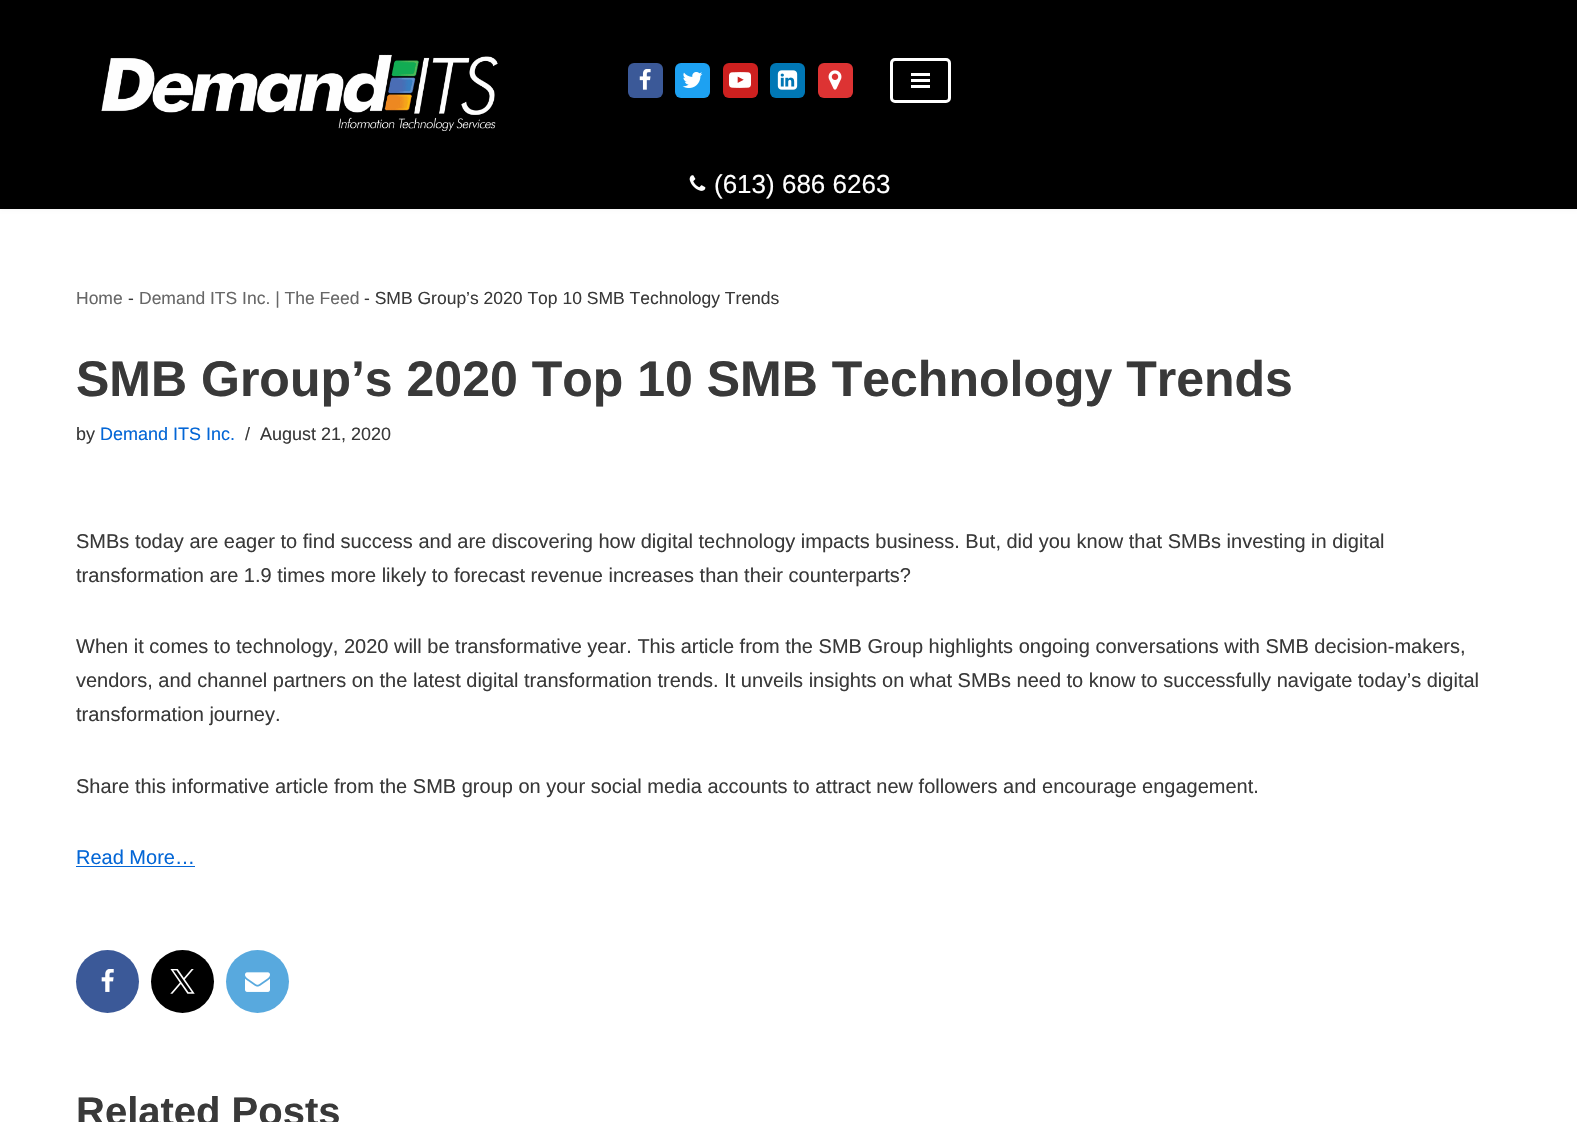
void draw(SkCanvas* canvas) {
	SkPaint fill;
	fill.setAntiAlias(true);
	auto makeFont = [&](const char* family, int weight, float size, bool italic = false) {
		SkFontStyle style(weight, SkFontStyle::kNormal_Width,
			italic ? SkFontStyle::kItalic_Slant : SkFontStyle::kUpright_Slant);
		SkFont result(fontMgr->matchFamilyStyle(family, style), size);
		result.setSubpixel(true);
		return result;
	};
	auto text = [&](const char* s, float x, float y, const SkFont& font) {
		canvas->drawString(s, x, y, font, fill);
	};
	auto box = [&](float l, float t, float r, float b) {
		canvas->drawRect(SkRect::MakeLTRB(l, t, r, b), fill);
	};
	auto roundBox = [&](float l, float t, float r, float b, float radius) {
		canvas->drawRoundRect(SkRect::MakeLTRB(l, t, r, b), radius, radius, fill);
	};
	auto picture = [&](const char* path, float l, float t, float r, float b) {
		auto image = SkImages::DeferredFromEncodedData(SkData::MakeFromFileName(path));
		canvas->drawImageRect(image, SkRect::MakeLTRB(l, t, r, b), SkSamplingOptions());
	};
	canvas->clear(0xFFFFFFFF);
	fill.setColor(0x1A000000);
	fill.setMaskFilter(SkMaskFilter::MakeBlur(kNormal_SkBlurStyle, 2));
	canvas->drawRect(SkRect::MakeLTRB(0, -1, 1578, 208), fill);
	fill.setMaskFilter(nullptr);
	fill.setColor(0xFF000000);
	box(0, 0, 1577, 209);
	picture("image0.png", 101, 54, 498, 131);
	fill.setColor(0xFF3B5998);
	roundBox(628, 63, 663, 98, 6);
	picture("image1.png", 639, 69, 651, 90);
	fill.setColor(0xFF1DA1F2);
	roundBox(675, 63, 710, 98, 6);
	picture("image2.png", 682, 72, 703, 88);
	fill.setColor(0xFFCD201F);
	roundBox(723, 63, 758, 98, 6);
	picture("image3.png", 729, 72, 751, 88);
	fill.setColor(0xFF0077B5);
	roundBox(770, 63, 805, 98, 6);
	picture("image4.png", 777, 70, 798, 90);
	fill.setColor(0xFFDD3333);
	roundBox(818, 63, 853, 98, 6);
	picture("image5.png", 828, 70, 842, 90);
	fill.setStyle(SkPaint::kStroke_Style);
	fill.setStrokeWidth(3);
	fill.setColor(0xFFFFFFFF);
	canvas->drawRoundRect(SkRect::MakeLTRB(891.5f, 59.5f, 949.5f, 101.5f), 3.5f, 3.5f, fill);
	fill.setStyle(SkPaint::kFill_Style);
	box(911, 73, 930, 76);
	box(911, 79, 930, 82);
	box(911, 85, 930, 88);
	picture("image6.png", 689, 175, 706, 191);
	fill.setColor(0xFF0366D6);
	box(76, 866, 195, 867);
	fill.setColor(0xFF3B5998);
	canvas->drawCircle(107.5f, 981.5f, 31.5f, fill);
	picture("image7.png", 101, 969, 114, 992);
	fill.setColor(0xFF000000);
	canvas->drawCircle(182.5f, 981.5f, 31.5f, fill);
	picture("image8.png", 170, 969, 195, 994);
	fill.setColor(0xFF58A9DE);
	canvas->drawCircle(257.5f, 981.5f, 31.5f, fill);
	picture("image9.png", 245, 972, 270, 992);
	auto font1 = makeFont("Liberation Sans", 400, 26);
	fill.setColor(0xFFFFFFFF);
	text("(613) 686 6263", 714, 193, font1);
	auto font2 = makeFont("Liberation Sans", 400, 17.5f);
	fill.setColor(0xFF676767);
	text("Home", 76, 304, font2);
	fill.setColor(0xFF393939);
	text("-", 128, 304, font2);
	fill.setColor(0xFF676767);
	text("Demand ITS Inc. | The Feed", 139, 304, font2);
	fill.setColor(0xFF393939);
	text("- SMB Group’s 2020 Top 10 SMB Technology Trends", 364, 304, font2);
	auto font3 = makeFont("Liberation Sans", 700, 50);
	text("SMB Group’s 2020 Top 10 SMB Technology Trends", 76, 396, font3);
	auto font4 = makeFont("Liberation Sans", 400, 18);
	text("by", 76, 440, font4);
	fill.setColor(0xFF0366D6);
	text("Demand ITS Inc.", 100, 440, font4);
	fill.setColor(0xFF393939);
	text("/", 245, 440, font4);
	text("August 21, 2020", 260, 440, font4);
	auto font5 = makeFont("Liberation Sans", 400, 20);
	text("SMBs today are eager to find success and are discovering how digital technology impacts business. But, did you know that SMBs investing in digital", 76, 548, font5);
	text("transformation are 1.9 times more likely to forecast revenue increases than their counterparts?", 76, 582, font5);
	text("When it comes to technology, 2020 will be transformative year. This article from the SMB Group highlights ongoing conversations with SMB decision-makers,", 76, 653, font5);
	text("vendors, and channel partners on the latest digital transformation trends. It unveils insights on what SMBs need to know to successfully navigate today’s digital", 76, 687, font5);
	text("transformation journey.", 76, 721, font5);
	text("Share this informative article from the SMB group on your social media accounts to attract new followers and encourage engagement.", 76, 793, font5);
	fill.setColor(0xFF0366D6);
	text("Read More…", 76, 864, font5);
	auto font6 = makeFont("Liberation Sans", 700, 40);
	fill.setColor(0xFF393939);
	text("Related Posts", 76, 1125, font6);
}
